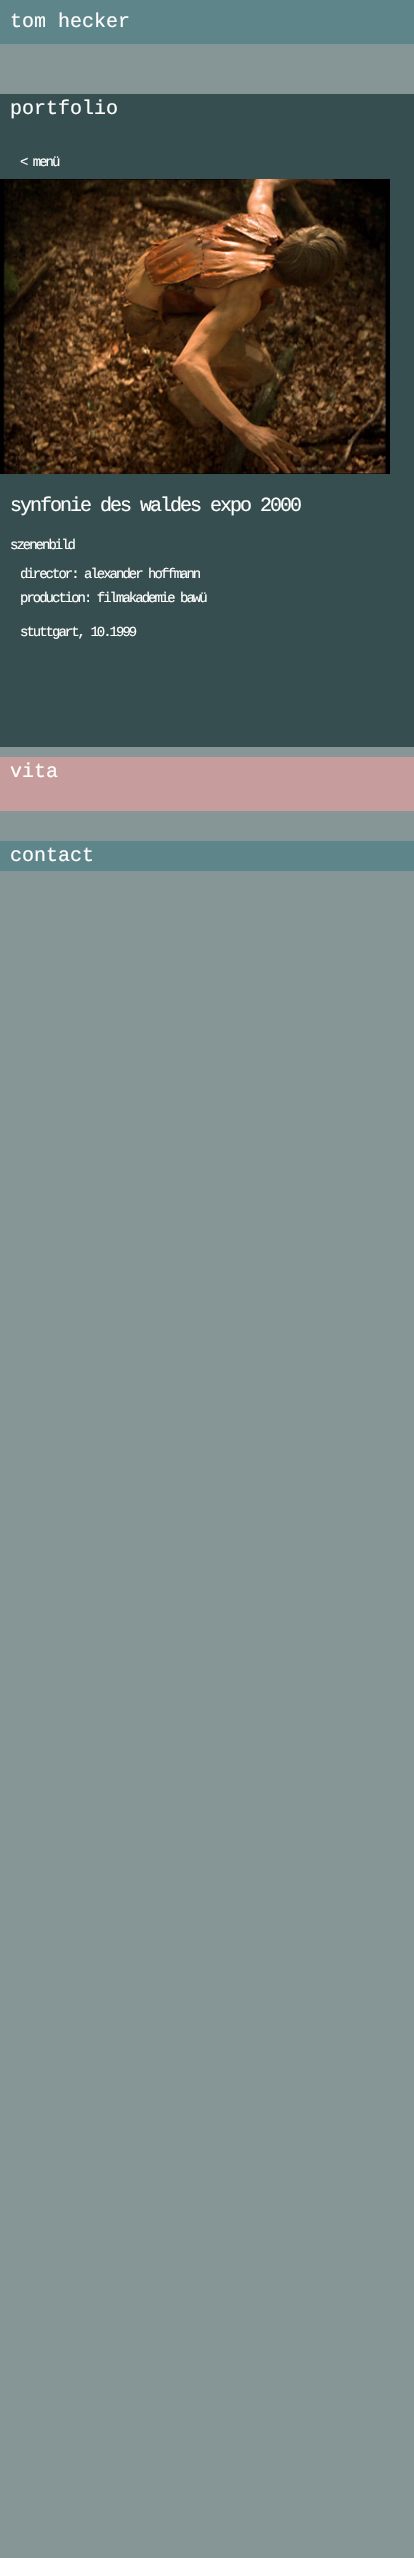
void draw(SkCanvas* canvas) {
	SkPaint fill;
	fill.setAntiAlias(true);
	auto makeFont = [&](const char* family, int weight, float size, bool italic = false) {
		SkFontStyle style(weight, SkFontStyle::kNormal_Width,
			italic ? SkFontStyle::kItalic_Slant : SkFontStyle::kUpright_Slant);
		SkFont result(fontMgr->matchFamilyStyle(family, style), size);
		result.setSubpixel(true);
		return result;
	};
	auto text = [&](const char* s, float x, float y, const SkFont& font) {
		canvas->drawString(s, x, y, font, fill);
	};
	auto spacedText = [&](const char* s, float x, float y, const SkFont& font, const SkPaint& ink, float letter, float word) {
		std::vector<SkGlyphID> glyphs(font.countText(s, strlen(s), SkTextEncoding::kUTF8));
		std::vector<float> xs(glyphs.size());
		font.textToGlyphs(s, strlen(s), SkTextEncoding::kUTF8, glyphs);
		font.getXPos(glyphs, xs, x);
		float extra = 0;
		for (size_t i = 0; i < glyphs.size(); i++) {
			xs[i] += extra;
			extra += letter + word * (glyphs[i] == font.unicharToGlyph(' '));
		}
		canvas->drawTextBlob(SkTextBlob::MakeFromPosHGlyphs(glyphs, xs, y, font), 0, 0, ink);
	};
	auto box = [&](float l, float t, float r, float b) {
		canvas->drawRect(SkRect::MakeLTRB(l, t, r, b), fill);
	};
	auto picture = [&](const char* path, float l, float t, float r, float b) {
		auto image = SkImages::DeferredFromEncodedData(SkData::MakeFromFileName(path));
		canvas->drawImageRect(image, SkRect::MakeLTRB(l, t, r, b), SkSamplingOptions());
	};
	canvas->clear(0xFF869596);
	fill.setColor(0xFF5E858A);
	box(0, 0, 414, 44);
	fill.setColor(0xFF364E4F);
	box(0, 94, 414, 747);
	picture("image0.png", 0, 179, 390, 474);
	fill.setColor(0xFFC69D9C);
	box(0, 757, 414, 811);
	fill.setColor(0xFF5E858A);
	box(0, 841, 414, 871);
	auto font1 = makeFont("Liberation Mono", 400, 20);
	fill.setColor(0xFFFFFFFF);
	text("tom hecker", 10, 27, font1);
	text("portfolio", 10, 114, font1);
	auto font2 = makeFont("Liberation Mono", 400, 14);
	spacedText("< menü", 20, 166, font2, fill, -2, 0);
	spacedText("synfonie des waldes expo 2000", 10, 511, font1, fill, -2, 0);
	spacedText("szenenbild", 10, 549, font2, fill, -2, 0);
	spacedText("director: alexander hoffmann", 20, 578, font2, fill, -2, 0);
	spacedText("production: filmakademie bawü", 20, 602, font2, fill, -2, 0);
	spacedText("stuttgart, 10.1999", 20, 636, font2, fill, -2, 0);
	text("vita", 10, 777, font1);
	text("contact", 10, 861, font1);
}
